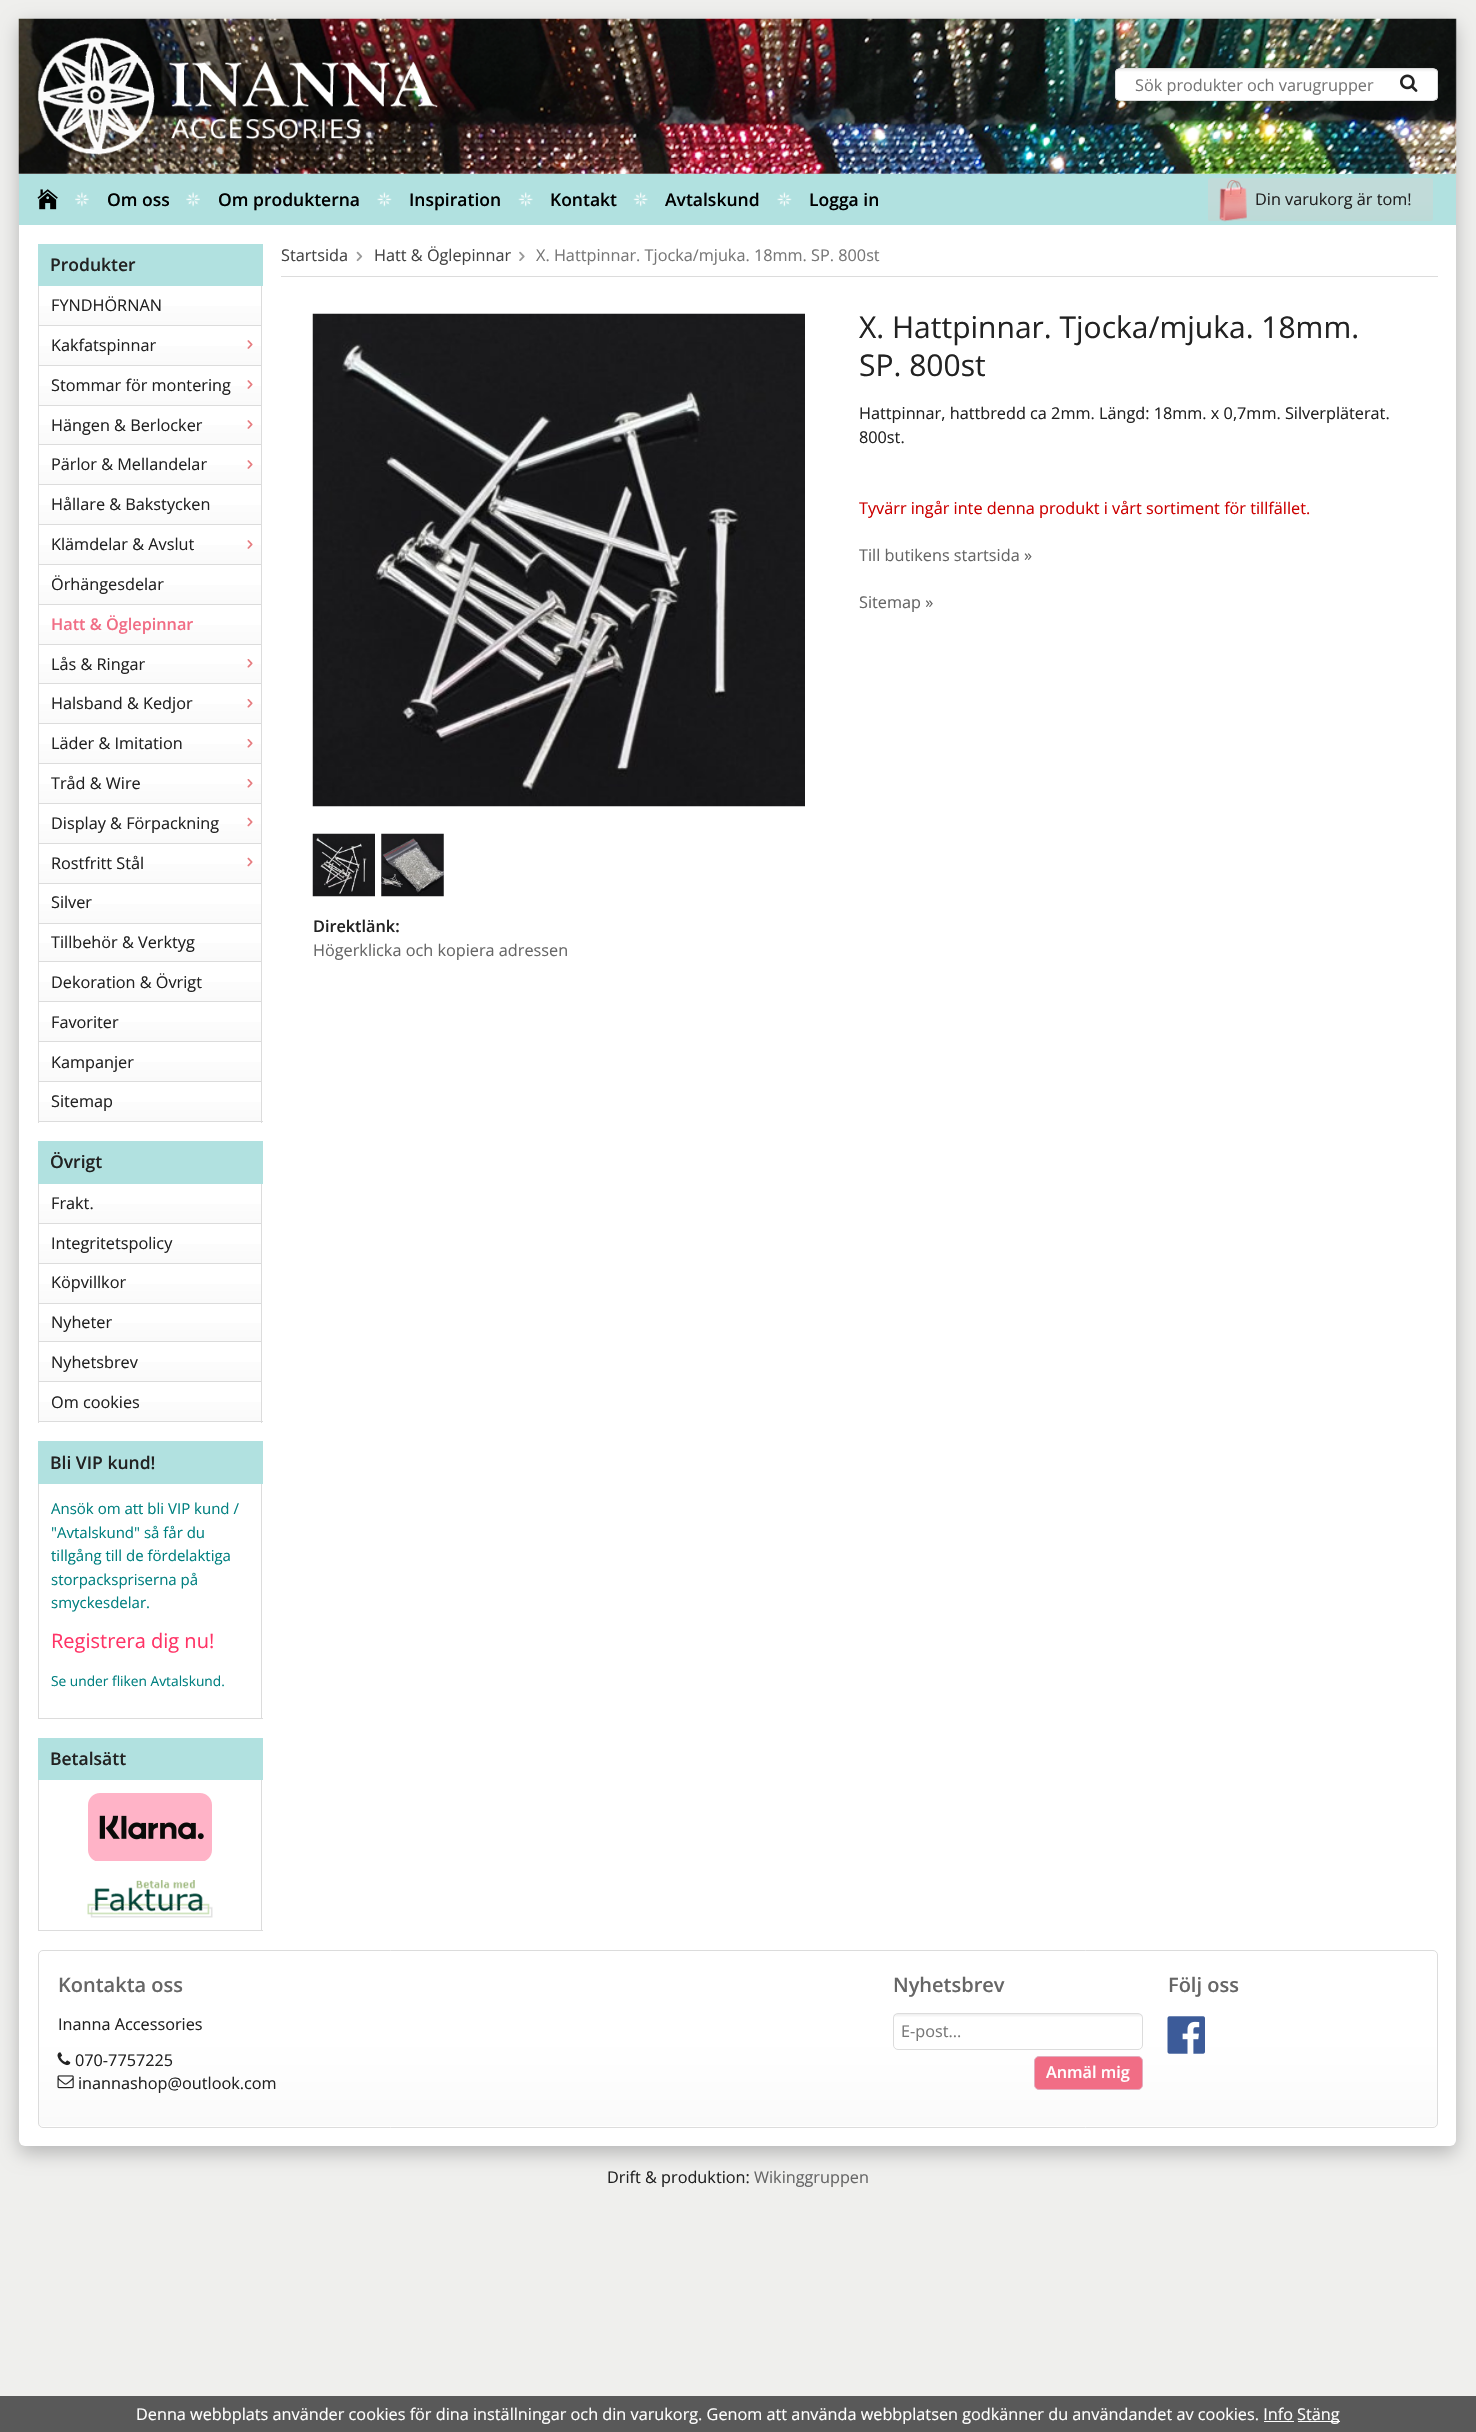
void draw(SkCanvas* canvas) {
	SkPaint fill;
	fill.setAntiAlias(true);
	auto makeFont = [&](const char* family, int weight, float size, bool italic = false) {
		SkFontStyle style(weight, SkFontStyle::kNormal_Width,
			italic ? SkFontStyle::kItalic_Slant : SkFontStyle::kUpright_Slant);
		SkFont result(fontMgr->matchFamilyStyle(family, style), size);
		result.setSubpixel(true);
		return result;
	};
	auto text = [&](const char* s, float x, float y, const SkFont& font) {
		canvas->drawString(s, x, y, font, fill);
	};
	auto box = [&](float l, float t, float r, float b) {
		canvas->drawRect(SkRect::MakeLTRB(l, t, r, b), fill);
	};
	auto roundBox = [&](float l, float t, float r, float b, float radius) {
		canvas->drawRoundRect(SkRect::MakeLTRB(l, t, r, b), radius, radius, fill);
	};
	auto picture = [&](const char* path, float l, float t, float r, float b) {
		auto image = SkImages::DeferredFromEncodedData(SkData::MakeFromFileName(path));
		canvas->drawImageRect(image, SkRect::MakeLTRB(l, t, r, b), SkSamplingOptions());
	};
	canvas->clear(0xFFEFEFED);
	fill.setColor(0xFFB5B5B5);
	fill.setMaskFilter(SkMaskFilter::MakeBlur(kNormal_SkBlurStyle, 9.5f));
	canvas->drawRoundRect(SkRect::MakeLTRB(19, 25, 1456, 2153), 6, 6, fill);
	fill.setMaskFilter(nullptr);
	fill.setColor(0xFFFFFFFF);
	roundBox(19, 19, 1456, 2146, 6);
	picture("image0.png", 18, 18, 1457, 174);
	picture("image1.png", 37, 37, 438, 155);
	canvas->save();
	canvas->clipPath(SkPathBuilder().moveTo(1120, 68).lineTo(1433, 68).cubicTo(1436, 68, 1438, 70, 1438, 73).lineTo(1438, 96).cubicTo(1438, 99, 1436, 101, 1433, 101).lineTo(1120, 101).cubicTo(1117, 101, 1115, 99, 1115, 96).lineTo(1115, 73).cubicTo(1115, 70, 1117, 68, 1120, 68).close().detach(), true);
	{
		const SkColor colors[] = {0xFFFFFFFF, 0xFFEEEEEE};
		const float stops[] = {0.9f, 1};
		const SkPoint ends[] = {{1276, 100}, {1276, 69}};
		fill.setShader(SkGradientShader::MakeLinear(ends, colors, stops, 2, SkTileMode::kClamp));
		fill.setAlpha(255);
	}
	box(1115, 69, 1438, 100);
	canvas->restore();
	fill.setStyle(SkPaint::kStroke_Style);
	fill.setStrokeWidth(1);
	fill.setShader(nullptr);
	fill.setColor(0xFFDCDCDC);
	canvas->drawRoundRect(SkRect::MakeLTRB(1115.5f, 68.5f, 1437.5f, 100.5f), 4.5f, 4.5f, fill);
	picture("image2.png", 1400, 74, 1418, 92);
	fill.setStyle(SkPaint::kFill_Style);
	fill.setColor(0xFFB1E1E0);
	box(19, 174, 1456, 225);
	picture("image3.png", 37, 189, 58, 210);
	picture("image4.png", 75, 192, 89, 207);
	picture("image5.png", 186, 192, 200, 207);
	picture("image6.png", 377, 192, 392, 207);
	picture("image7.png", 518, 192, 533, 207);
	picture("image8.png", 633, 192, 648, 207);
	picture("image6.png", 777, 192, 792, 207);
	{
		const SkColor colors[] = {0xFFC1DBD9, 0xFFBCDAD7};
		const float stops[] = {0.5f, 1};
		const SkPoint ends[] = {{1320, 178}, {1320, 221}};
		fill.setShader(SkGradientShader::MakeLinear(ends, colors, stops, 2, SkTileMode::kClamp));
		fill.setAlpha(255);
	}
	roundBox(1208, 178, 1433, 221, 2.5f);
	picture("image9.png", 1219, 180, 1247, 222);
	fill.setShader(nullptr);
	fill.setColor(0xFFB1E1E0);
	box(38, 244, 263, 286);
	fill.setColor(0xFFDCDCDC);
	box(261, 286, 262, 1123);
	box(39, 1121, 263, 1122);
	box(38, 286, 39, 1123);
	{
		const SkColor colors[] = {0xFFFFFFFF, 0xFFFAFAFA};
		const float stops[] = {0, 1};
		const SkPoint ends[] = {{150, 286}, {150, 325}};
		fill.setShader(SkGradientShader::MakeLinear(ends, colors, stops, 2, SkTileMode::kClamp));
		fill.setAlpha(255);
	}
	box(39, 306, 261, 325);
	fill.setShader(nullptr);
	fill.setColor(0xFFDCDCDC);
	box(39, 325, 261, 326);
	{
		const SkColor colors[] = {0xFFFFFFFF, 0xFFFAFAFA};
		const float stops[] = {0, 1};
		const SkPoint ends[] = {{150, 326}, {150, 365}};
		fill.setShader(SkGradientShader::MakeLinear(ends, colors, stops, 2, SkTileMode::kClamp));
		fill.setAlpha(255);
	}
	box(39, 346, 261, 365);
	fill.setShader(nullptr);
	fill.setColor(0xFFDCDCDC);
	box(39, 365, 261, 366);
	picture("image10.png", 247, 340, 253, 349);
	{
		const SkColor colors[] = {0xFFFFFFFF, 0xFFFAFAFA};
		const float stops[] = {0, 1};
		const SkPoint ends[] = {{150, 366}, {150, 405}};
		fill.setShader(SkGradientShader::MakeLinear(ends, colors, stops, 2, SkTileMode::kClamp));
		fill.setAlpha(255);
	}
	box(39, 386, 261, 405);
	fill.setShader(nullptr);
	fill.setColor(0xFFDCDCDC);
	box(39, 405, 261, 406);
	picture("image10.png", 247, 380, 253, 389);
	{
		const SkColor colors[] = {0xFFFFFFFF, 0xFFFAFAFA};
		const float stops[] = {0, 1};
		const SkPoint ends[] = {{150, 406}, {150, 444}};
		fill.setShader(SkGradientShader::MakeLinear(ends, colors, stops, 2, SkTileMode::kClamp));
		fill.setAlpha(255);
	}
	box(39, 425, 261, 444);
	fill.setShader(nullptr);
	fill.setColor(0xFFDCDCDC);
	box(39, 444, 261, 445);
	picture("image11.png", 247, 420, 253, 429);
	{
		const SkColor colors[] = {0xFFFFFFFF, 0xFFFAFAFA};
		const float stops[] = {0, 1};
		const SkPoint ends[] = {{150, 445}, {150, 484}};
		fill.setShader(SkGradientShader::MakeLinear(ends, colors, stops, 2, SkTileMode::kClamp));
		fill.setAlpha(255);
	}
	box(39, 465, 261, 484);
	fill.setShader(nullptr);
	fill.setColor(0xFFDCDCDC);
	box(39, 484, 261, 485);
	picture("image11.png", 247, 460, 253, 469);
	{
		const SkColor colors[] = {0xFFFFFFFF, 0xFFFAFAFA};
		const float stops[] = {0, 1};
		const SkPoint ends[] = {{150, 485}, {150, 524}};
		fill.setShader(SkGradientShader::MakeLinear(ends, colors, stops, 2, SkTileMode::kClamp));
		fill.setAlpha(255);
	}
	box(39, 505, 261, 524);
	fill.setShader(nullptr);
	fill.setColor(0xFFDCDCDC);
	box(39, 524, 261, 525);
	{
		const SkColor colors[] = {0xFFFFFFFF, 0xFFFAFAFA};
		const float stops[] = {0, 1};
		const SkPoint ends[] = {{150, 525}, {150, 564}};
		fill.setShader(SkGradientShader::MakeLinear(ends, colors, stops, 2, SkTileMode::kClamp));
		fill.setAlpha(255);
	}
	box(39, 545, 261, 564);
	fill.setShader(nullptr);
	fill.setColor(0xFFDCDCDC);
	box(39, 564, 261, 565);
	picture("image11.png", 247, 540, 253, 549);
	{
		const SkColor colors[] = {0xFFFFFFFF, 0xFFFAFAFA};
		const float stops[] = {0, 1};
		const SkPoint ends[] = {{150, 565}, {150, 604}};
		fill.setShader(SkGradientShader::MakeLinear(ends, colors, stops, 2, SkTileMode::kClamp));
		fill.setAlpha(255);
	}
	box(39, 585, 261, 604);
	fill.setShader(nullptr);
	fill.setColor(0xFFDCDCDC);
	box(39, 604, 261, 605);
	{
		const SkColor colors[] = {0xFFFFFFFF, 0xFFFAFAFA};
		const float stops[] = {0, 1};
		const SkPoint ends[] = {{150, 605}, {150, 644}};
		fill.setShader(SkGradientShader::MakeLinear(ends, colors, stops, 2, SkTileMode::kClamp));
		fill.setAlpha(255);
	}
	box(39, 625, 261, 644);
	fill.setShader(nullptr);
	fill.setColor(0xFFDCDCDC);
	box(39, 644, 261, 645);
	{
		const SkColor colors[] = {0xFFFFFFFF, 0xFFFAFAFA};
		const float stops[] = {0, 1};
		const SkPoint ends[] = {{150, 645}, {150, 683}};
		fill.setShader(SkGradientShader::MakeLinear(ends, colors, stops, 2, SkTileMode::kClamp));
		fill.setAlpha(255);
	}
	box(39, 664, 261, 683);
	fill.setShader(nullptr);
	fill.setColor(0xFFDCDCDC);
	box(39, 683, 261, 684);
	picture("image12.png", 247, 659, 253, 668);
	{
		const SkColor colors[] = {0xFFFFFFFF, 0xFFFAFAFA};
		const float stops[] = {0, 1};
		const SkPoint ends[] = {{150, 684}, {150, 723}};
		fill.setShader(SkGradientShader::MakeLinear(ends, colors, stops, 2, SkTileMode::kClamp));
		fill.setAlpha(255);
	}
	box(39, 704, 261, 723);
	fill.setShader(nullptr);
	fill.setColor(0xFFDCDCDC);
	box(39, 723, 261, 724);
	picture("image12.png", 247, 699, 253, 708);
	{
		const SkColor colors[] = {0xFFFFFFFF, 0xFFFAFAFA};
		const float stops[] = {0, 1};
		const SkPoint ends[] = {{150, 724}, {150, 763}};
		fill.setShader(SkGradientShader::MakeLinear(ends, colors, stops, 2, SkTileMode::kClamp));
		fill.setAlpha(255);
	}
	box(39, 744, 261, 763);
	fill.setShader(nullptr);
	fill.setColor(0xFFDCDCDC);
	box(39, 763, 261, 764);
	picture("image12.png", 247, 739, 253, 748);
	{
		const SkColor colors[] = {0xFFFFFFFF, 0xFFFAFAFA};
		const float stops[] = {0, 1};
		const SkPoint ends[] = {{150, 764}, {150, 803}};
		fill.setShader(SkGradientShader::MakeLinear(ends, colors, stops, 2, SkTileMode::kClamp));
		fill.setAlpha(255);
	}
	box(39, 784, 261, 803);
	fill.setShader(nullptr);
	fill.setColor(0xFFDCDCDC);
	box(39, 803, 261, 804);
	picture("image12.png", 247, 779, 253, 788);
	{
		const SkColor colors[] = {0xFFFFFFFF, 0xFFFAFAFA};
		const float stops[] = {0, 1};
		const SkPoint ends[] = {{150, 804}, {150, 843}};
		fill.setShader(SkGradientShader::MakeLinear(ends, colors, stops, 2, SkTileMode::kClamp));
		fill.setAlpha(255);
	}
	box(39, 824, 261, 843);
	fill.setShader(nullptr);
	fill.setColor(0xFFDCDCDC);
	box(39, 843, 261, 844);
	picture("image13.png", 247, 817, 253, 827);
	{
		const SkColor colors[] = {0xFFFFFFFF, 0xFFFAFAFA};
		const float stops[] = {0, 1};
		const SkPoint ends[] = {{150, 844}, {150, 883}};
		fill.setShader(SkGradientShader::MakeLinear(ends, colors, stops, 2, SkTileMode::kClamp));
		fill.setAlpha(255);
	}
	box(39, 864, 261, 883);
	fill.setShader(nullptr);
	fill.setColor(0xFFDCDCDC);
	box(39, 883, 261, 884);
	picture("image13.png", 247, 857, 253, 867);
	{
		const SkColor colors[] = {0xFFFFFFFF, 0xFFFAFAFA};
		const float stops[] = {0, 1};
		const SkPoint ends[] = {{150, 884}, {150, 923}};
		fill.setShader(SkGradientShader::MakeLinear(ends, colors, stops, 2, SkTileMode::kClamp));
		fill.setAlpha(255);
	}
	box(39, 904, 261, 923);
	fill.setShader(nullptr);
	fill.setColor(0xFFDCDCDC);
	box(39, 923, 261, 924);
	{
		const SkColor colors[] = {0xFFFFFFFF, 0xFFFAFAFA};
		const float stops[] = {0, 1};
		const SkPoint ends[] = {{150, 924}, {150, 961}};
		fill.setShader(SkGradientShader::MakeLinear(ends, colors, stops, 2, SkTileMode::kClamp));
		fill.setAlpha(255);
	}
	box(39, 943, 261, 961);
	fill.setShader(nullptr);
	fill.setColor(0xFFDCDCDC);
	box(39, 961, 261, 962);
	{
		const SkColor colors[] = {0xFFFFFFFF, 0xFFFAFAFA};
		const float stops[] = {0, 1};
		const SkPoint ends[] = {{150, 963}, {150, 1001}};
		fill.setShader(SkGradientShader::MakeLinear(ends, colors, stops, 2, SkTileMode::kClamp));
		fill.setAlpha(255);
	}
	box(39, 982, 261, 1001);
	fill.setShader(nullptr);
	fill.setColor(0xFFDCDCDC);
	box(39, 1001, 261, 1002);
	{
		const SkColor colors[] = {0xFFFFFFFF, 0xFFFAFAFA};
		const float stops[] = {0, 1};
		const SkPoint ends[] = {{150, 1003}, {150, 1041}};
		fill.setShader(SkGradientShader::MakeLinear(ends, colors, stops, 2, SkTileMode::kClamp));
		fill.setAlpha(255);
	}
	box(39, 1022, 261, 1041);
	fill.setShader(nullptr);
	fill.setColor(0xFFDCDCDC);
	box(39, 1041, 261, 1042);
	{
		const SkColor colors[] = {0xFFFFFFFF, 0xFFFAFAFA};
		const float stops[] = {0, 1};
		const SkPoint ends[] = {{150, 1043}, {150, 1081}};
		fill.setShader(SkGradientShader::MakeLinear(ends, colors, stops, 2, SkTileMode::kClamp));
		fill.setAlpha(255);
	}
	box(39, 1062, 261, 1081);
	fill.setShader(nullptr);
	fill.setColor(0xFFDCDCDC);
	box(39, 1081, 261, 1082);
	{
		const SkColor colors[] = {0xFFFFFFFF, 0xFFFAFAFA};
		const float stops[] = {0, 1};
		const SkPoint ends[] = {{150, 1083}, {150, 1121}};
		fill.setShader(SkGradientShader::MakeLinear(ends, colors, stops, 2, SkTileMode::kClamp));
		fill.setAlpha(255);
	}
	box(39, 1102, 261, 1121);
	fill.setShader(nullptr);
	fill.setColor(0xFFB1E1E0);
	box(38, 1141, 263, 1184);
	fill.setColor(0xFFDCDCDC);
	box(261, 1184, 262, 1423);
	box(39, 1421, 263, 1422);
	box(38, 1184, 39, 1423);
	{
		const SkColor colors[] = {0xFFFFFFFF, 0xFFFAFAFA};
		const float stops[] = {0, 1};
		const SkPoint ends[] = {{150, 1184}, {150, 1223}};
		fill.setShader(SkGradientShader::MakeLinear(ends, colors, stops, 2, SkTileMode::kClamp));
		fill.setAlpha(255);
	}
	box(39, 1204, 261, 1223);
	fill.setShader(nullptr);
	fill.setColor(0xFFDCDCDC);
	box(39, 1223, 261, 1224);
	{
		const SkColor colors[] = {0xFFFFFFFF, 0xFFFAFAFA};
		const float stops[] = {0, 1};
		const SkPoint ends[] = {{150, 1224}, {150, 1263}};
		fill.setShader(SkGradientShader::MakeLinear(ends, colors, stops, 2, SkTileMode::kClamp));
		fill.setAlpha(255);
	}
	box(39, 1244, 261, 1263);
	fill.setShader(nullptr);
	fill.setColor(0xFFDCDCDC);
	box(39, 1263, 261, 1264);
	{
		const SkColor colors[] = {0xFFFFFFFF, 0xFFFAFAFA};
		const float stops[] = {0, 1};
		const SkPoint ends[] = {{150, 1264}, {150, 1303}};
		fill.setShader(SkGradientShader::MakeLinear(ends, colors, stops, 2, SkTileMode::kClamp));
		fill.setAlpha(255);
	}
	box(39, 1284, 261, 1303);
	fill.setShader(nullptr);
	fill.setColor(0xFFDCDCDC);
	box(39, 1303, 261, 1304);
	{
		const SkColor colors[] = {0xFFFFFFFF, 0xFFFAFAFA};
		const float stops[] = {0, 1};
		const SkPoint ends[] = {{150, 1304}, {150, 1341}};
		fill.setShader(SkGradientShader::MakeLinear(ends, colors, stops, 2, SkTileMode::kClamp));
		fill.setAlpha(255);
	}
	box(39, 1323, 261, 1341);
	fill.setShader(nullptr);
	fill.setColor(0xFFDCDCDC);
	box(39, 1341, 261, 1342);
	{
		const SkColor colors[] = {0xFFFFFFFF, 0xFFFAFAFA};
		const float stops[] = {0, 1};
		const SkPoint ends[] = {{150, 1343}, {150, 1381}};
		fill.setShader(SkGradientShader::MakeLinear(ends, colors, stops, 2, SkTileMode::kClamp));
		fill.setAlpha(255);
	}
	box(39, 1362, 261, 1381);
	fill.setShader(nullptr);
	fill.setColor(0xFFDCDCDC);
	box(39, 1381, 261, 1382);
	{
		const SkColor colors[] = {0xFFFFFFFF, 0xFFFAFAFA};
		const float stops[] = {0, 1};
		const SkPoint ends[] = {{150, 1383}, {150, 1421}};
		fill.setShader(SkGradientShader::MakeLinear(ends, colors, stops, 2, SkTileMode::kClamp));
		fill.setAlpha(255);
	}
	box(39, 1402, 261, 1421);
	fill.setShader(nullptr);
	fill.setColor(0xFFB1E1E0);
	box(38, 1441, 263, 1484);
	fill.setColor(0xFFDCDCDC);
	box(261, 1484, 262, 1719);
	box(38, 1718, 263, 1719);
	box(38, 1484, 39, 1719);
	fill.setColor(0xFFB1E1E0);
	box(38, 1738, 263, 1780);
	fill.setColor(0xFFDCDCDC);
	box(261, 1780, 262, 1931);
	box(38, 1930, 263, 1931);
	box(38, 1780, 39, 1931);
	picture("image14.png", 88, 1793, 212, 1861);
	picture("image15.png", 87, 1880, 213, 1918);
	box(281, 276, 1438, 277);
	picture("image16.png", 356, 251, 363, 262);
	picture("image17.png", 519, 251, 525, 261);
	picture("image18.png", 312, 313, 805, 807);
	picture("image19.png", 312, 833, 375, 897);
	picture("image20.png", 381, 833, 444, 897);
	canvas->save();
	canvas->clipPath(SkPathBuilder().moveTo(43, 1950).lineTo(1433, 1950).cubicTo(1436, 1950, 1438, 1952, 1438, 1955).lineTo(1438, 2123).cubicTo(1438, 2126, 1436, 2128, 1433, 2128).lineTo(43, 2128).cubicTo(40, 2128, 38, 2126, 38, 2123).lineTo(38, 1955).cubicTo(38, 1952, 40, 1950, 43, 1950).close().detach(), true);
	{
		const SkColor colors[] = {0xFFFFFFFF, 0xFFFAFAFA};
		const float stops[] = {0.5f, 1};
		const SkPoint ends[] = {{738, 1951}, {738, 2126}};
		fill.setShader(SkGradientShader::MakeLinear(ends, colors, stops, 2, SkTileMode::kClamp));
		fill.setAlpha(255);
	}
	box(38, 1951, 1438, 2126);
	canvas->restore();
	fill.setStyle(SkPaint::kStroke_Style);
	fill.setShader(nullptr);
	fill.setColor(0xFFDCDCDC);
	canvas->drawRoundRect(SkRect::MakeLTRB(38.5f, 1950.5f, 1437.5f, 2127.5f), 4.5f, 4.5f, fill);
	picture("image21.png", 57, 2052, 71, 2066);
	picture("image22.png", 57, 2075, 74, 2089);
	canvas->save();
	canvas->clipPath(SkPathBuilder().moveTo(898, 2013).lineTo(1138, 2013).cubicTo(1141, 2013, 1143, 2015, 1143, 2018).lineTo(1143, 2045).cubicTo(1143, 2048, 1141, 2050, 1138, 2050).lineTo(898, 2050).cubicTo(895, 2050, 893, 2048, 893, 2045).lineTo(893, 2018).cubicTo(893, 2015, 895, 2013, 898, 2013).close().detach(), true);
	fill.setStyle(SkPaint::kFill_Style);
	{
		const SkColor colors[] = {0xFFFFFFFF, 0xFFEEEEEE};
		const float stops[] = {0.9f, 1};
		const SkPoint ends[] = {{1018, 2049}, {1018, 2014}};
		fill.setShader(SkGradientShader::MakeLinear(ends, colors, stops, 2, SkTileMode::kClamp));
		fill.setAlpha(255);
	}
	box(893, 2014, 1143, 2049);
	canvas->restore();
	fill.setStyle(SkPaint::kStroke_Style);
	fill.setShader(nullptr);
	fill.setColor(0xFFDCDCDC);
	canvas->drawRoundRect(SkRect::MakeLTRB(893.5f, 2013.5f, 1142.5f, 2049.5f), 4.5f, 4.5f, fill);
	fill.setStyle(SkPaint::kFill_Style);
	fill.setColor(0xFFF16D85);
	canvas->drawRoundRect(SkRect::MakeLTRB(1034.5f, 2056.5f, 1142.5f, 2089.5f), 4.5f, 4.5f, fill);
	fill.setStyle(SkPaint::kStroke_Style);
	fill.setColor(0xFFE2AEC0);
	canvas->drawRoundRect(SkRect::MakeLTRB(1034.5f, 2056.5f, 1142.5f, 2089.5f), 4.5f, 4.5f, fill);
	picture("image23.png", 1167, 2016, 1205, 2054);
	fill.setStyle(SkPaint::kFill_Style);
	fill.setColor(0xFF595959);
	box(0, 2396, 1476, 2432);
	fill.setColor(0xFFFFFFFF);
	box(1298, 2421, 1340, 2422);
	box(1264, 2421, 1294, 2422);
	auto font1 = makeFont("Open Sans", 400, 16.25f);
	fill.setColor(0xFF777777);
	text("Sök produkter och varugrupper", 1135, 91, font1);
	auto font2 = makeFont("Open Sans", 600, 17.5f);
	fill.setColor(0xFF000000);
	text("Om oss", 107, 206, font2);
	text("Om produkterna", 218, 206, font2);
	text("Inspiration", 409, 206, font2);
	text("Kontakt", 550, 206, font2);
	text("Avtalskund", 665, 206, font2);
	text("Logga in", 809, 206, font2);
	fill.setColor(0xFF222222);
	text("Din varukorg är tom!", 1255, 205, font1);
	text("Produkter", 50, 271, font2);
	text("FYNDHÖRNAN", 51, 311, font1);
	text("Kakfatspinnar", 51, 351, font1);
	text("Stommar för montering", 51, 391, font1);
	text("Hängen & Berlocker", 51, 431, font1);
	text("Pärlor & Mellandelar", 51, 470, font1);
	text("Hållare & Bakstycken", 51, 510, font1);
	text("Klämdelar & Avslut", 51, 550, font1);
	text("Örhängesdelar", 51, 590, font1);
	auto font3 = makeFont("Open Sans", 600, 16.25f);
	fill.setColor(0xFFF16D85);
	text("Hatt & Öglepinnar", 51, 630, font3);
	fill.setColor(0xFF222222);
	text("Lås & Ringar", 51, 670, font1);
	text("Halsband & Kedjor", 51, 709, font1);
	text("Läder & Imitation", 51, 749, font1);
	text("Tråd & Wire", 51, 789, font1);
	text("Display & Förpackning", 51, 829, font1);
	text("Rostfritt Stål", 51, 869, font1);
	text("Silver", 51, 908, font1);
	text("Tillbehör & Verktyg", 51, 948, font1);
	text("Dekoration & Övrigt", 51, 988, font1);
	text("Favoriter", 51, 1028, font1);
	text("Kampanjer", 51, 1068, font1);
	text("Sitemap", 51, 1107, font1);
	text("Övrigt", 50, 1168, font2);
	text("Frakt.", 51, 1209, font1);
	text("Integritetspolicy", 51, 1249, font1);
	text("Köpvillkor", 51, 1288, font1);
	text("Nyheter", 51, 1328, font1);
	text("Nyhetsbrev", 51, 1368, font1);
	text("Om cookies", 51, 1408, font1);
	text("Bli VIP kund!", 50, 1469, font2);
	auto font4 = makeFont("Open Sans", 400, 15);
	fill.setColor(0xFF008080);
	text("Ansök om att bli VIP kund /", 51, 1514, font4);
	text("\"Avtalskund\" så får du", 51, 1538, font4);
	text("tillgång till de fördelaktiga", 51, 1561, font4);
	text("storpackspriserna på", 51, 1585, font4);
	text("smyckesdelar.", 51, 1608, font4);
	auto font5 = makeFont("Open Sans", 400, 20);
	fill.setColor(0xFFFF3366);
	text("Registrera dig nu!", 51, 1648, font5);
	auto font6 = makeFont("Open Sans", 400, 13.75f);
	fill.setColor(0xFF008080);
	text("Se under fliken Avtalskund.", 51, 1686, font6);
	fill.setColor(0xFF222222);
	text("Betalsätt", 50, 1765, font2);
	fill.setColor(0xFF444444);
	text("Startsida", 281, 261, font1);
	text("Hatt & Öglepinnar", 374, 261, font1);
	fill.setColor(0xFF777777);
	text("X. Hattpinnar. Tjocka/mjuka. 18mm. SP. 800st", 536, 261, font1);
	auto font7 = makeFont("Open Sans", 400, 30);
	fill.setColor(0xFF222222);
	text("X. Hattpinnar. Tjocka/mjuka. 18mm.", 859, 338, font7);
	text("SP. 800st", 859, 376, font7);
	text("Hattpinnar, hattbredd ca 2mm. Längd: 18mm. x 0,7mm. Silverpläterat.", 859, 419, font1);
	text("800st.", 859, 443, font1);
	fill.setColor(0xFFCC0000);
	text("Tyvärr ingår inte denna produkt i vårt sortiment för tillfället.", 859, 514, font1);
	fill.setColor(0xFF666666);
	text("Till butikens startsida »", 859, 561, font1);
	text("Sitemap »", 859, 608, font1);
	fill.setColor(0xFF222222);
	text("Direktlänk:", 313, 932, font3);
	fill.setColor(0xFF666666);
	text("Högerklicka och kopiera adressen", 313, 956, font1);
	auto font8 = makeFont("Open Sans", 600, 20);
	text("Kontakta oss", 58, 1992, font8);
	fill.setColor(0xFF222222);
	text("Inanna Accessories", 58, 2030, font1);
	text("070-7757225", 75, 2066, font1);
	text("inannashop@outlook.com", 78, 2089, font1);
	fill.setColor(0xFF666666);
	text("Nyhetsbrev", 893, 1992, font8);
	fill.setColor(0xFF777777);
	text("E-post...", 901, 2037, font1);
	fill.setColor(0xFFFFFFFF);
	text("Anmäl mig", 1046, 2078, font3);
	fill.setColor(0xFF666666);
	text("Följ oss", 1168, 1992, font8);
	fill.setColor(0xFF222222);
	text("Drift & produktion:", 607, 2183, font1);
	fill.setColor(0xFF666666);
	text("Wikinggruppen", 754, 2183, font1);
	fill.setColor(0xFFFFFFFF);
	text("Denna webbplats använder cookies för dina inställningar och din varukorg. Genom att använda webbplatsen godkänner du användandet av cookies. Info", 136, 2420, font1);
	text("Stäng", 1297, 2420, font1);
}
